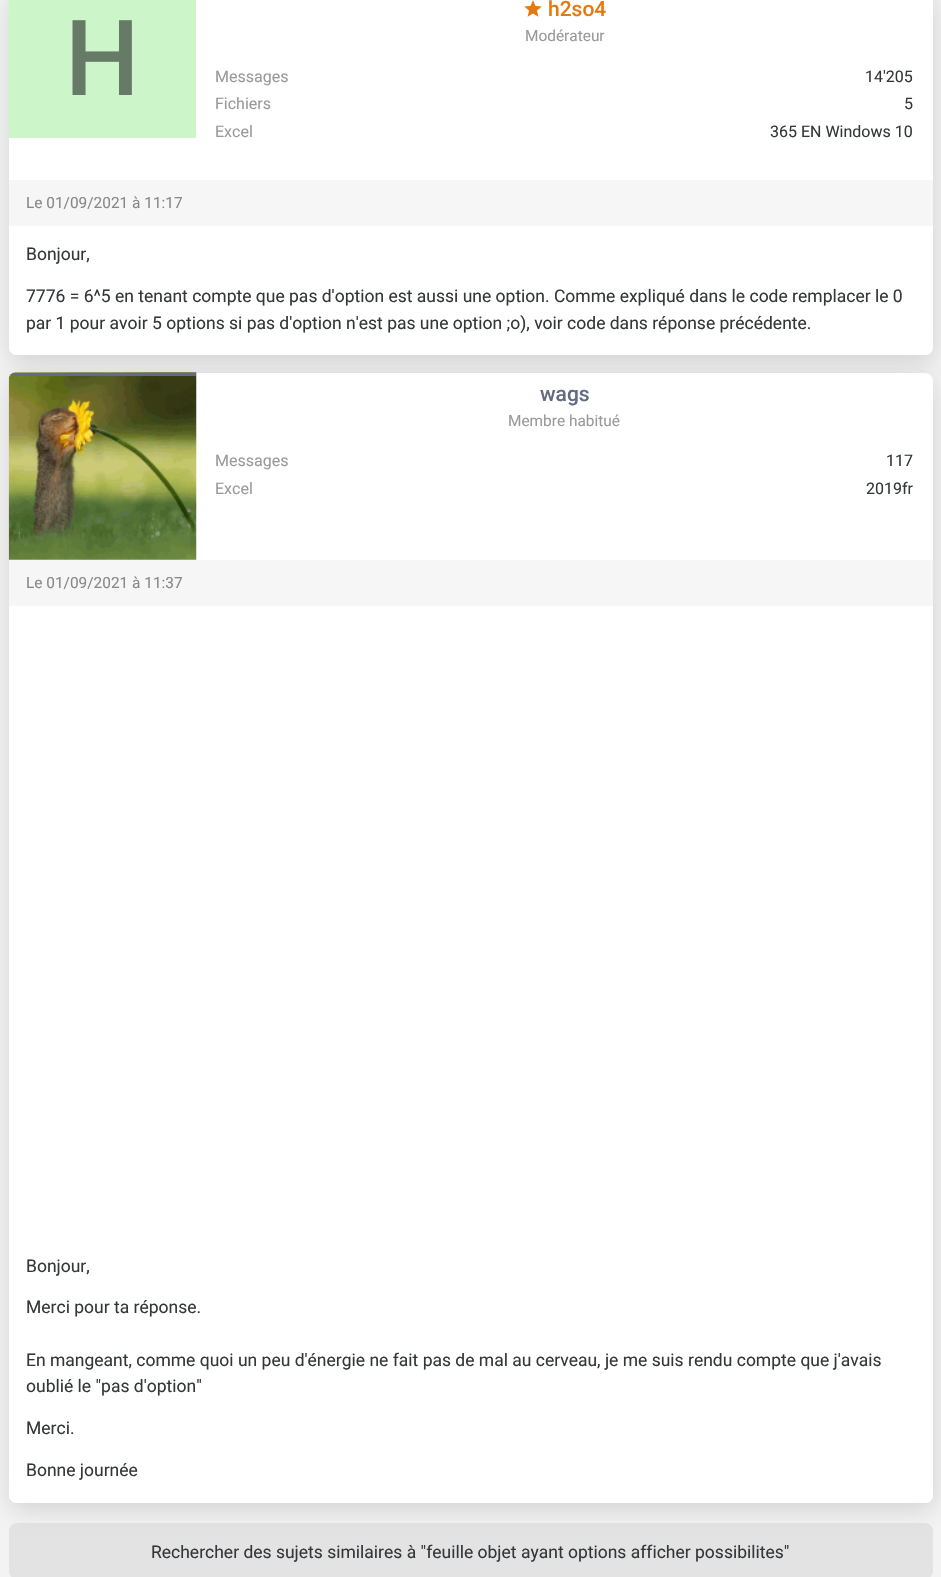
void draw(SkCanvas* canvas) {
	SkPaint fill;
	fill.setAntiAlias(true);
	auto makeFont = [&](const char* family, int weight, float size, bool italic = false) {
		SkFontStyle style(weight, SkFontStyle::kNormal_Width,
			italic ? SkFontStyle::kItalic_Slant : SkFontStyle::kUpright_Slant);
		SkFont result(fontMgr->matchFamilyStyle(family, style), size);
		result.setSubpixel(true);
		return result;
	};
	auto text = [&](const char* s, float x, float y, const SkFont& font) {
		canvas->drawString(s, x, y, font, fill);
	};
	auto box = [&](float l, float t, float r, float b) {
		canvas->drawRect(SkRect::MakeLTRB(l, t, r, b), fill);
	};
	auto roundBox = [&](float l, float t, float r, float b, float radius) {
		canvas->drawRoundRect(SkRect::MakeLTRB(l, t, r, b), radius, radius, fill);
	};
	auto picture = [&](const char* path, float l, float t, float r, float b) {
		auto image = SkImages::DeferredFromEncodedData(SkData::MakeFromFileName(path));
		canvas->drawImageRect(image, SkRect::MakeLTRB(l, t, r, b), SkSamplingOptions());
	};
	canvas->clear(0xFFF3F3F3);
	fill.setColor(0x59969696);
	fill.setMaskFilter(SkMaskFilter::MakeBlur(kNormal_SkBlurStyle, 13));
	canvas->drawRoundRect(SkRect::MakeLTRB(10, -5, 934, 363), 8, 8, fill);
	fill.setMaskFilter(nullptr);
	fill.setColor(0xFFFFFFFF);
	roundBox(9, -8, 933, 355, 8);
	fill.setColor(0xFFCCF6C9);
	box(9, 0, 196, 138);
	picture("image0.png", 524, 0, 542, 17);
	fill.setColor(0xFFF6F6F6);
	box(9, 180, 933, 226);
	fill.setColor(0xFFFFFFFF);
	canvas->drawPath(SkPathBuilder().moveTo(9, 226).lineTo(933, 226).lineTo(933, 347).cubicTo(933, 351.5f, 929.5f, 355, 925, 355).lineTo(17, 355).cubicTo(12.5f, 355, 9, 351.5f, 9, 347).close().detach(), fill);
	fill.setColor(0xFFE3E3E3);
	roundBox(9, 1523, 933, 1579, 8);
	fill.setColor(0x59969696);
	fill.setMaskFilter(SkMaskFilter::MakeBlur(kNormal_SkBlurStyle, 13));
	canvas->drawRoundRect(SkRect::MakeLTRB(10, 380, 934, 1510), 8, 8, fill);
	fill.setMaskFilter(nullptr);
	fill.setColor(0xFFFFFFFF);
	roundBox(9, 373, 933, 1503, 8);
	picture("image1.png", 8, 372, 197, 560);
	canvas->save();
	canvas->clipPath(SkPathBuilder().moveTo(17, 373).lineTo(925, 373).cubicTo(929.5f, 373, 933, 376.5f, 933, 381).lineTo(933, 1495).cubicTo(933, 1499.5f, 929.5f, 1503, 925, 1503).lineTo(17, 1503).cubicTo(12.5f, 1503, 9, 1499.5f, 9, 1495).lineTo(9, 381).cubicTo(9, 376.5f, 12.5f, 373, 17, 373).close().detach(), true);
	fill.setColor(0xFF626B81);
	box(9, 373, 196, 376);
	canvas->restore();
	fill.setColor(0xFFF6F6F6);
	box(9, 560, 933, 606);
	fill.setColor(0xFFFFFFFF);
	canvas->drawPath(SkPathBuilder().moveTo(9, 606).lineTo(933, 606).lineTo(933, 1495).cubicTo(933, 1499.5f, 929.5f, 1503, 925, 1503).lineTo(17, 1503).cubicTo(12.5f, 1503, 9, 1499.5f, 9, 1495).close().detach(), fill);
	auto font1 = makeFont("Roboto", 500, 105);
	fill.setColor(0xFF667B65);
	text("H", 65, 95, font1);
	auto font2 = makeFont("Roboto", 500, 21);
	fill.setColor(0xFFE57910);
	text("h2so4", 548, 16, font2);
	auto font3 = makeFont("Roboto", 400, 15.4f);
	fill.setColor(0xFF999999);
	text("Modérateur", 525, 41, font3);
	auto font4 = makeFont("Roboto", 400, 16);
	text("Messages", 215, 82, font4);
	fill.setColor(0xFF34373A);
	text("14'205", 865, 82, font4);
	fill.setColor(0xFF999999);
	text("Fichiers", 215, 109, font4);
	fill.setColor(0xFF34373A);
	text("5", 904, 109, font4);
	fill.setColor(0xFF999999);
	text("Excel", 215, 137, font4);
	fill.setColor(0xFF34373A);
	text("365 EN Windows 10", 770, 137, font4);
	fill.setColor(0xFF888888);
	text("Le 01/09/2021 à 11:17", 26, 208, font3);
	auto font5 = makeFont("Roboto", 400, 17.5f);
	fill.setColor(0xFF34373A);
	text("Bonjour,", 26, 260, font5);
	text("7776 = 6^5 en tenant compte que pas d'option est aussi une option. Comme expliqué dans le code remplacer le 0", 26, 302, font5);
	text("par 1 pour avoir 5 options si pas d'option n'est pas une option ;o), voir code dans réponse précédente.", 26, 329, font5);
	fill.setColor(0xFF626B81);
	text("wags", 540, 401, font2);
	fill.setColor(0xFF999999);
	text("Membre habitué", 508, 426, font3);
	text("Messages", 215, 466, font4);
	fill.setColor(0xFF34373A);
	text("117", 886, 466, font4);
	fill.setColor(0xFF999999);
	text("Excel", 215, 494, font4);
	fill.setColor(0xFF34373A);
	text("2019fr", 866, 494, font4);
	fill.setColor(0xFF888888);
	text("Le 01/09/2021 à 11:37", 26, 588, font3);
	fill.setColor(0xFF34373A);
	text("Bonjour,", 26, 1272, font5);
	text("Merci pour ta réponse.", 26, 1313, font5);
	text("En mangeant, comme quoi un peu d'énergie ne fait pas de mal au cerveau, je me suis rendu compte que j'avais", 26, 1366, font5);
	text("oublié le \"pas d'option\"", 26, 1392, font5);
	text("Merci.", 26, 1434, font5);
	text("Bonne journée", 26, 1476, font5);
	text("Rechercher des sujets similaires à \"feuille objet ayant options afficher possibilites\"", 151, 1558, font5);
}
